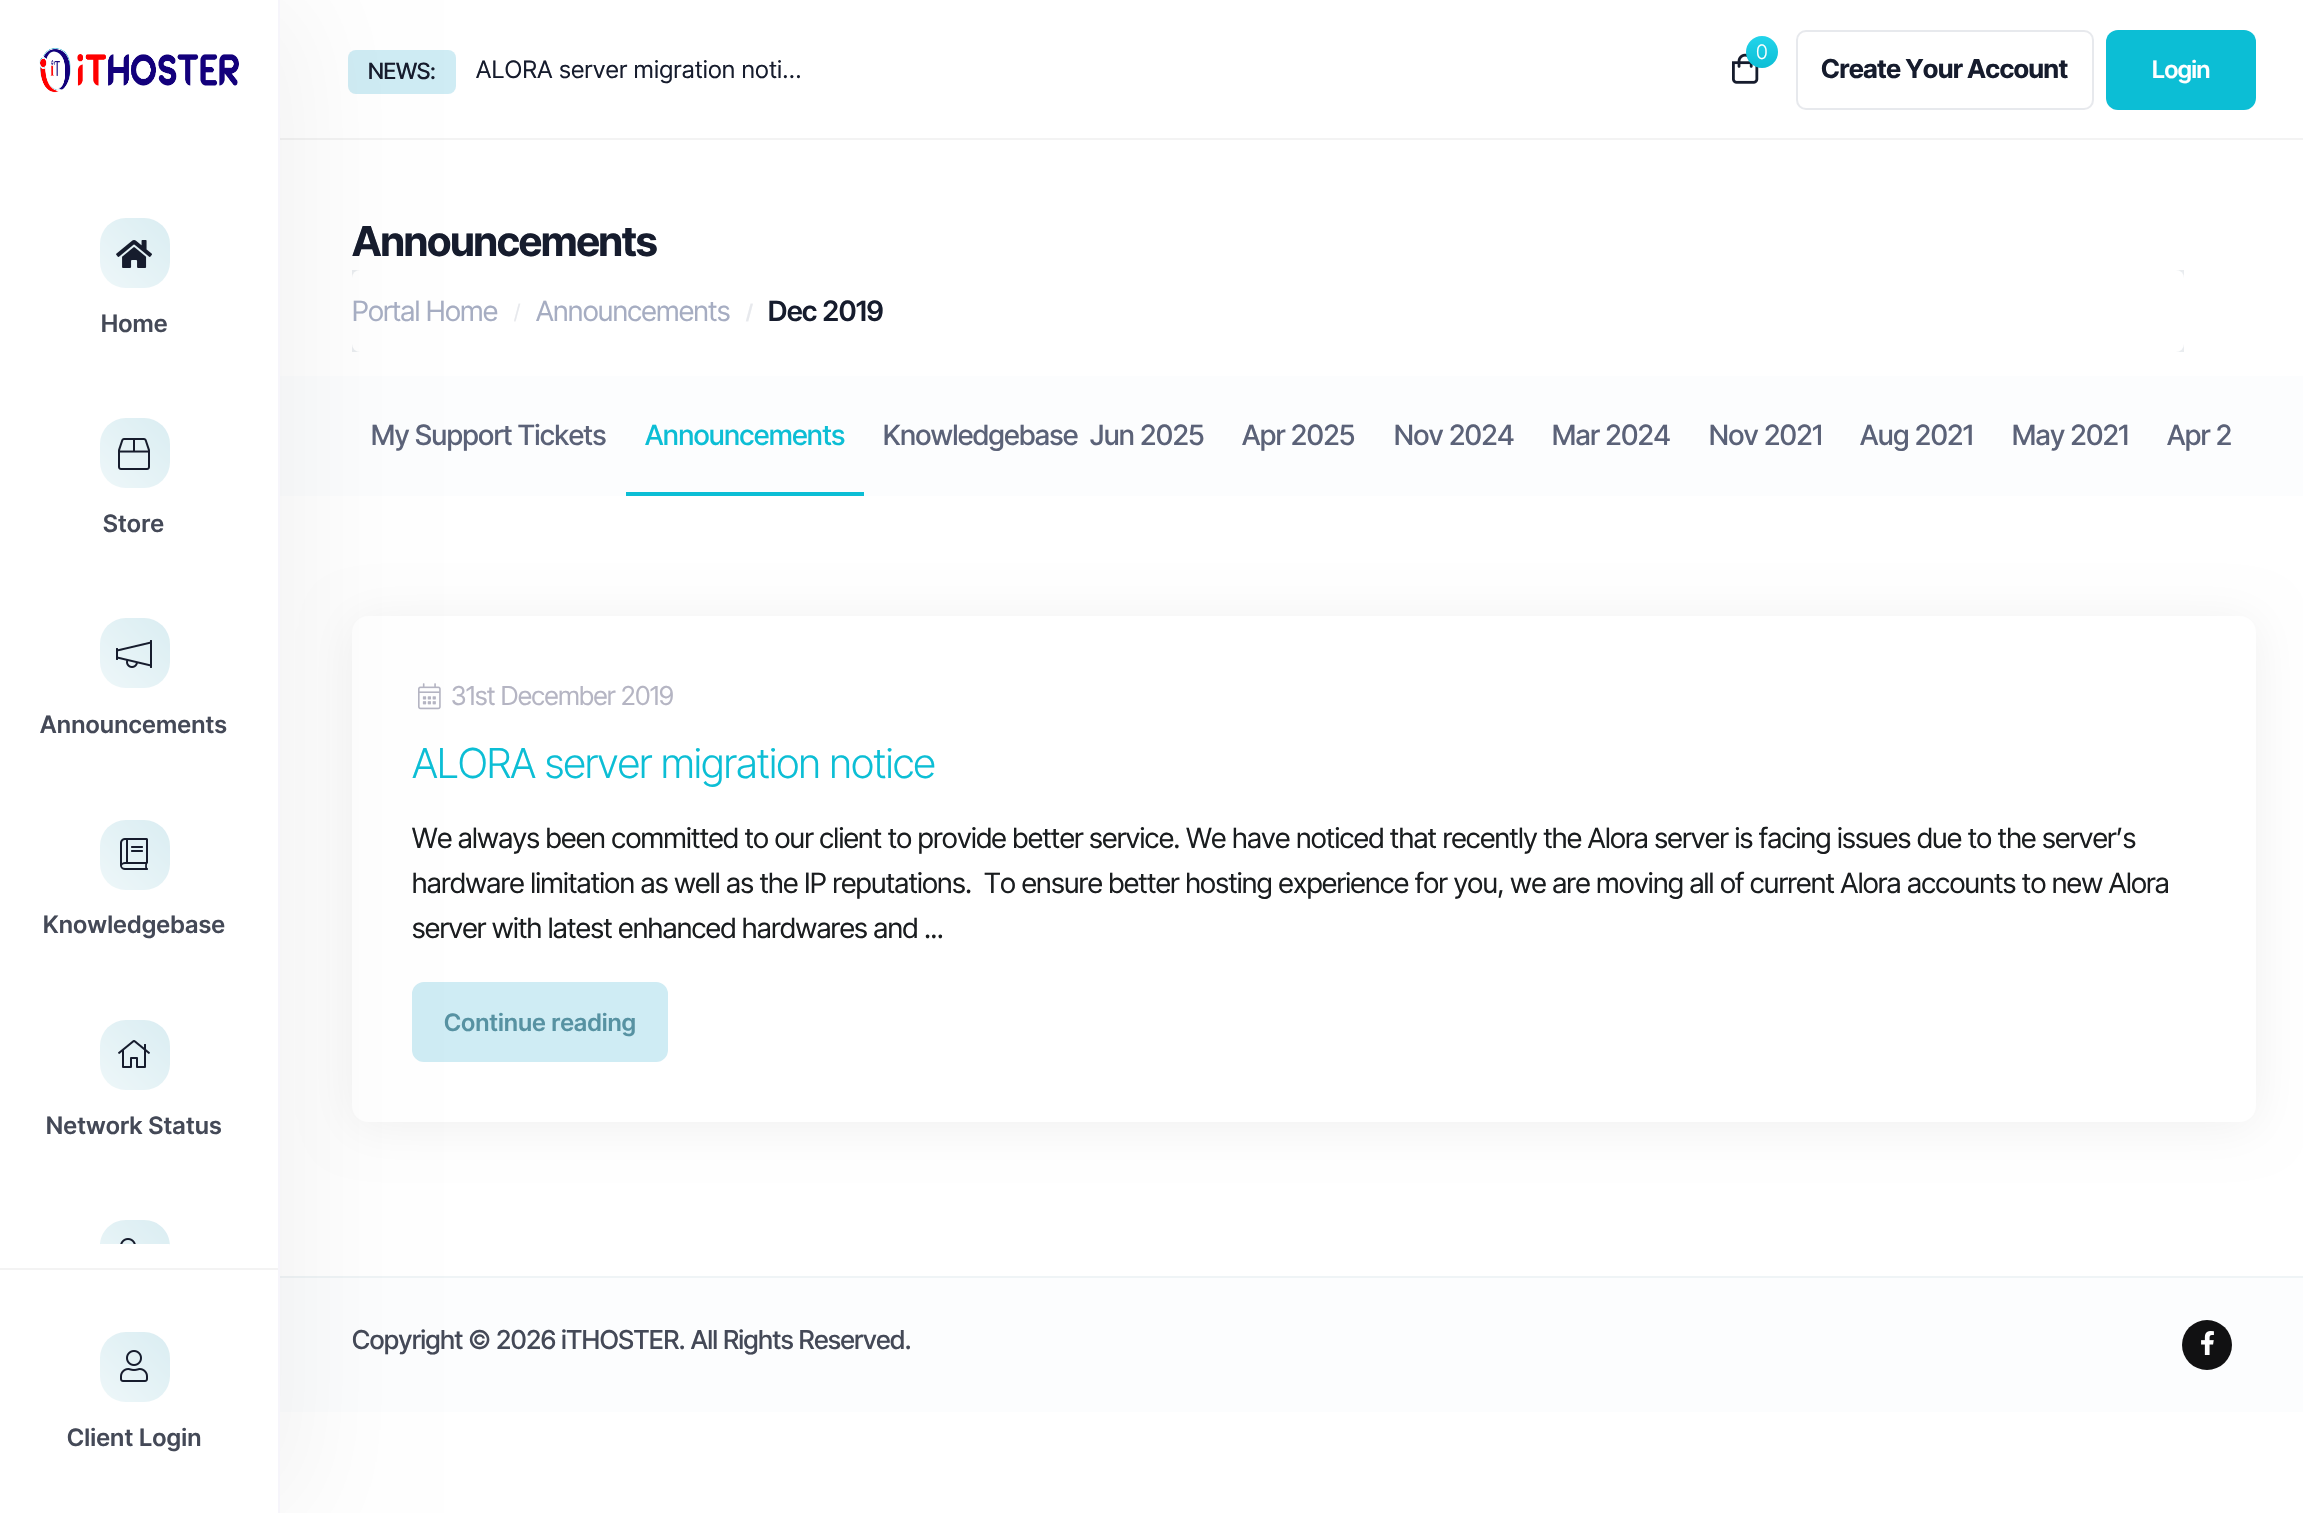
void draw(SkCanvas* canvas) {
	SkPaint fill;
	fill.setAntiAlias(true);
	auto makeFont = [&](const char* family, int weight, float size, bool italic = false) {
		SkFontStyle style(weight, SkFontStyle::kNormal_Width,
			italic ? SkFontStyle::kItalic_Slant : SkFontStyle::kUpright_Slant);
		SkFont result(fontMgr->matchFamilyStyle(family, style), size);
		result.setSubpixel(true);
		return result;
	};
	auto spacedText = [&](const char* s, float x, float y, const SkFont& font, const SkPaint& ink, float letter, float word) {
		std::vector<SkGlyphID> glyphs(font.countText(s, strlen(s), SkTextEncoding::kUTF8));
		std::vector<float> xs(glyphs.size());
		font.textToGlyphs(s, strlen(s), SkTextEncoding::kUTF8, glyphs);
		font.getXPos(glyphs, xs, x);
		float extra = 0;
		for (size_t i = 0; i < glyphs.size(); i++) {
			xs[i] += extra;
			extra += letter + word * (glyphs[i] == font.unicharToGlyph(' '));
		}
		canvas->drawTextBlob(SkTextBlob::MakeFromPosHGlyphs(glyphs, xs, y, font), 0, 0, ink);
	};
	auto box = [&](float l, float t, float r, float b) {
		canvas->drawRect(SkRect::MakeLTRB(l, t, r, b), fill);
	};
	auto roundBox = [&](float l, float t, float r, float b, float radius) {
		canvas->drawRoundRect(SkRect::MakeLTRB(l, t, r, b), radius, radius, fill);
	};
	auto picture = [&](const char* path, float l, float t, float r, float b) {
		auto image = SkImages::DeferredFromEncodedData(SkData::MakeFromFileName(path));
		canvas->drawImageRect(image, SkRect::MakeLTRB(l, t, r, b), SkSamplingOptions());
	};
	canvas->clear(0xFFFFFFFF);
	fill.setColor(0xFFF3F3F3);
	box(280, 138, 2303, 140);
	fill.setColor(0xFFCFECF4);
	roundBox(348, 50, 456, 94, 8);
	picture("image0.png", 1732, 53, 1759, 84);
	{
		const SkColor colors[] = {0xFF0CBED5, 0xFF23D4EB};
		const float stops[] = {0, 1};
		const SkPoint ends[] = {{1762, 68}, {1762, 36}};
		fill.setShader(SkGradientShader::MakeLinear(ends, colors, stops, 2, SkTileMode::kClamp));
		fill.setAlpha(255);
	}
	canvas->drawCircle(1762, 52, 16, fill);
	fill.setStyle(SkPaint::kStroke_Style);
	fill.setStrokeWidth(2);
	fill.setShader(nullptr);
	fill.setColor(0xFFE7E9ED);
	canvas->drawRoundRect(SkRect::MakeLTRB(1797, 31, 2093, 109), 9, 9, fill);
	fill.setStyle(SkPaint::kFill_Style);
	fill.setColor(0xFF0CBED5);
	roundBox(2106, 30, 2256, 110, 12);
	fill.setColor(0xFFE9ECEF);
	box(352, 270, 2184, 352);
	fill.setColor(0xFFFFFFFF);
	roundBox(352, 270, 2184, 352, 8);
	fill.setColor(0xFFFCFDFE);
	box(280, 376, 2303, 496);
	fill.setColor(0x0F000000);
	fill.setMaskFilter(SkMaskFilter::MakeBlur(kNormal_SkBlurStyle, 24));
	canvas->drawRoundRect(SkRect::MakeLTRB(352, 620, 2256, 1126), 16, 16, fill);
	fill.setMaskFilter(nullptr);
	fill.setColor(0xFFFFFFFF);
	roundBox(352, 616, 2256, 1122, 16);
	picture("image9.png", 418, 683, 441, 710);
	fill.setColor(0xFFCFECF4);
	canvas->drawRoundRect(SkRect::MakeLTRB(413, 983, 667, 1061), 11, 11, fill);
	fill.setStyle(SkPaint::kStroke_Style);
	canvas->drawRoundRect(SkRect::MakeLTRB(413, 983, 667, 1061), 11, 11, fill);
	fill.setStyle(SkPaint::kFill_Style);
	fill.setColor(0xFFFCFDFE);
	box(280, 1278, 2303, 1412);
	fill.setColor(0xFFEFF4F6);
	box(280, 1276, 2303, 1278);
	fill.setColor(0x0D000000);
	fill.setMaskFilter(SkMaskFilter::MakeBlur(kNormal_SkBlurStyle, 60));
	canvas->drawRect(SkRect::MakeLTRB(20, 0, 300, 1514), fill);
	fill.setMaskFilter(nullptr);
	fill.setColor(0xFFFFFFFF);
	box(0, 0, 278, 1513);
	fill.setColor(0xFFF6F5FB);
	box(278, 0, 280, 1513);
	picture("image1.png", 39, 47, 239, 93);
	{
		const SkColor colors[] = {0xFFEEF7F9, 0xFFDAEDF2};
		const float stops[] = {0, 1};
		const SkPoint ends[] = {{100, 288}, {170, 218}};
		fill.setShader(SkGradientShader::MakeLinear(ends, colors, stops, 2, SkTileMode::kClamp));
		fill.setAlpha(255);
	}
	roundBox(100, 218, 170, 288, 26);
	picture("image2.png", 116, 240, 152, 268);
	{
		const SkColor colors[] = {0xFFEEF7F9, 0xFFDAEDF2};
		const float stops[] = {0, 1};
		const SkPoint ends[] = {{100, 488}, {170, 418}};
		fill.setShader(SkGradientShader::MakeLinear(ends, colors, stops, 2, SkTileMode::kClamp));
		fill.setAlpha(255);
	}
	roundBox(100, 418, 170, 488, 26);
	picture("image3.png", 118, 438, 150, 470);
	{
		const SkColor colors[] = {0xFFEEF7F9, 0xFFDAEDF2};
		const float stops[] = {0, 1};
		const SkPoint ends[] = {{100, 688}, {170, 618}};
		fill.setShader(SkGradientShader::MakeLinear(ends, colors, stops, 2, SkTileMode::kClamp));
		fill.setAlpha(255);
	}
	roundBox(100, 618, 170, 688, 26);
	picture("image4.png", 116, 640, 152, 668);
	{
		const SkColor colors[] = {0xFFEEF7F9, 0xFFDAEDF2};
		const float stops[] = {0, 1};
		const SkPoint ends[] = {{100, 890}, {170, 820}};
		fill.setShader(SkGradientShader::MakeLinear(ends, colors, stops, 2, SkTileMode::kClamp));
		fill.setAlpha(255);
	}
	roundBox(100, 820, 170, 890, 26);
	picture("image5.png", 120, 838, 148, 870);
	{
		const SkColor colors[] = {0xFFEEF7F9, 0xFFDAEDF2};
		const float stops[] = {0, 1};
		const SkPoint ends[] = {{100, 1090}, {170, 1020}};
		fill.setShader(SkGradientShader::MakeLinear(ends, colors, stops, 2, SkTileMode::kClamp));
		fill.setAlpha(255);
	}
	roundBox(100, 1020, 170, 1090, 26);
	picture("image6.png", 118, 1040, 150, 1068);
	{
		const SkColor colors[] = {0xFFEEF7F9, 0xFFDAEDF2};
		const float stops[] = {0, 1};
		const SkPoint ends[] = {{100, 1290}, {170, 1220}};
		fill.setShader(SkGradientShader::MakeLinear(ends, colors, stops, 2, SkTileMode::kClamp));
		fill.setAlpha(255);
	}
	canvas->drawPath(SkPathBuilder().moveTo(126, 1220).lineTo(144, 1220).cubicTo(158.5f, 1220, 170, 1231.5f, 170, 1246).lineTo(170, 1244).lineTo(100, 1244).lineTo(100, 1246).cubicTo(100, 1231.5f, 111.5f, 1220, 126, 1220).close().detach(), fill);
	picture("image7.png", 120, 1238, 136, 1244);
	fill.setShader(nullptr);
	fill.setColor(0xFFF3F3F3);
	box(0, 1268, 278, 1270);
	{
		const SkColor colors[] = {0xFFEEF7F9, 0xFFDAEDF2};
		const float stops[] = {0, 1};
		const SkPoint ends[] = {{100, 1402}, {170, 1332}};
		fill.setShader(SkGradientShader::MakeLinear(ends, colors, stops, 2, SkTileMode::kClamp));
		fill.setAlpha(255);
	}
	roundBox(100, 1332, 170, 1402, 26);
	picture("image8.png", 120, 1350, 148, 1382);
	fill.setShader(nullptr);
	fill.setColor(0xFF0CBED5);
	box(626, 492, 864, 496);
	fill.setColor(0xFF111112);
	canvas->drawCircle(2207, 1345, 25, fill);
	picture("image10.png", 2201, 1331, 2214, 1355);
	auto font1 = makeFont("Inter Tight", 500, 22.5f);
	fill.setColor(0xFF161C2D);
	spacedText("NEWS:", 368, 79, font1, fill, -0.3f, 0);
	auto font2 = makeFont("Inter Tight", 400, 24);
	spacedText("ALORA server migration noti…", 476, 78, font2, fill, 0.6f, 0);
	auto font3 = makeFont("Inter Tight", 300, 20);
	fill.setColor(0xFFFFFFFF);
	spacedText("0", 1756, 59, font3, fill, -0.3f, 0);
	auto font4 = makeFont("Inter Tight", 700, 26);
	fill.setColor(0xFF161C2D);
	spacedText("Create Your Account", 1821, 78, font4, fill, -0.3f, 0);
	auto font5 = makeFont("Inter Tight", 600, 24);
	fill.setColor(0xFFFFFFFF);
	spacedText("Login", 2152, 78, font5, fill, -0.3f, 0);
	fill.setColor(0xFF444957);
	spacedText("Home", 101, 332, font5, fill, 0.6f, 0);
	spacedText("Store", 103, 532, font5, fill, 0.6f, 0);
	spacedText("Announcements", 40, 733, font5, fill, 0.6f, 0);
	spacedText("Knowledgebase", 43, 933, font5, fill, 0.6f, 0);
	spacedText("Network Status", 46, 1134, font5, fill, 0.6f, 0);
	spacedText("Client Login", 67, 1446, font5, fill, 0.6f, 0);
	auto font6 = makeFont("Inter Tight", 700, 41.25f);
	fill.setColor(0xFF161C2D);
	spacedText("Announcements", 352, 256, font6, fill, -1, 0);
	auto font7 = makeFont("Inter Tight", 400, 28);
	fill.setColor(0xFFA6ADC2);
	spacedText("Portal Home", 352, 321, font7, fill, -0.3f, 0);
	auto font8 = makeFont("Inter Tight", 400, 20);
	fill.setColor(0xFFE7E9ED);
	spacedText("/", 514, 319, font8, fill, -0.3f, 0);
	fill.setColor(0xFFA6ADC2);
	spacedText("Announcements", 536, 321, font7, fill, -0.3f, 0);
	auto font9 = makeFont("Inter Tight", 600, 20);
	fill.setColor(0xFFE7E9ED);
	spacedText("/", 746, 319, font9, fill, -0.3f, 0);
	auto font10 = makeFont("Inter Tight", 600, 28);
	fill.setColor(0xFF161C2D);
	spacedText("Dec 2019", 768, 321, font10, fill, -0.3f, 0);
	auto font11 = makeFont("Inter Tight", 500, 28);
	fill.setColor(0xFF5B6278);
	spacedText("My Support Tickets", 371, 445, font11, fill, -0.3f, 0);
	fill.setColor(0xFF0CBED5);
	spacedText("Announcements", 645, 445, font11, fill, -0.3f, 0);
	fill.setColor(0xFF5B6278);
	spacedText("Knowledgebase", 883, 445, font11, fill, -0.3f, 0);
	spacedText("Jun 2025", 1090, 445, font11, fill, -0.3f, 0);
	spacedText("Apr 2025", 1242, 445, font11, fill, -0.3f, 0);
	spacedText("Nov 2024", 1394, 445, font11, fill, -0.3f, 0);
	spacedText("Mar 2024", 1552, 445, font11, fill, -0.3f, 0);
	spacedText("Nov 2021", 1709, 445, font11, fill, -0.3f, 0);
	spacedText("Aug 2021", 1860, 445, font11, fill, -0.3f, 0);
	spacedText("May 2021", 2012, 445, font11, fill, -0.3f, 0);
	spacedText("Apr 2", 2167, 445, font11, fill, -0.3f, 0);
	auto font12 = makeFont("Inter Tight", 400, 26);
	fill.setColor(0xFFB5B5C3);
	spacedText("31st December 2019", 451, 705, font12, fill, -0.3f, 0);
	auto font13 = makeFont("Inter Tight", 300, 41.25f);
	fill.setColor(0xFF0CBED5);
	spacedText("ALORA server migration notice", 412, 778, font13, fill, -1, 0);
	fill.setColor(0xFF1A1D1F);
	spacedText("We always been committed to our client to provide better service. We have noticed that recently the Alora server is facing issues due to the server’s", 412, 848, font7, fill, -0.3f, 0);
	spacedText("hardware limitation as well as the IP reputations.  To ensure better hosting experience for you, we are moving all of current Alora accounts to new Alora", 412, 893, font7, fill, -0.3f, 0);
	spacedText("server with latest enhanced hardwares and ...", 412, 938, font7, fill, -0.3f, 0);
	fill.setColor(0xFF5792A2);
	spacedText("Continue reading", 444, 1031, font5, fill, 0.4f, 0);
	auto font14 = makeFont("Inter Tight", 500, 26);
	fill.setColor(0xFF444957);
	spacedText("Copyright © 2026 iTHOSTER. All Rights Reserved.", 352, 1349, font14, fill, -0.3f, 0);
}
